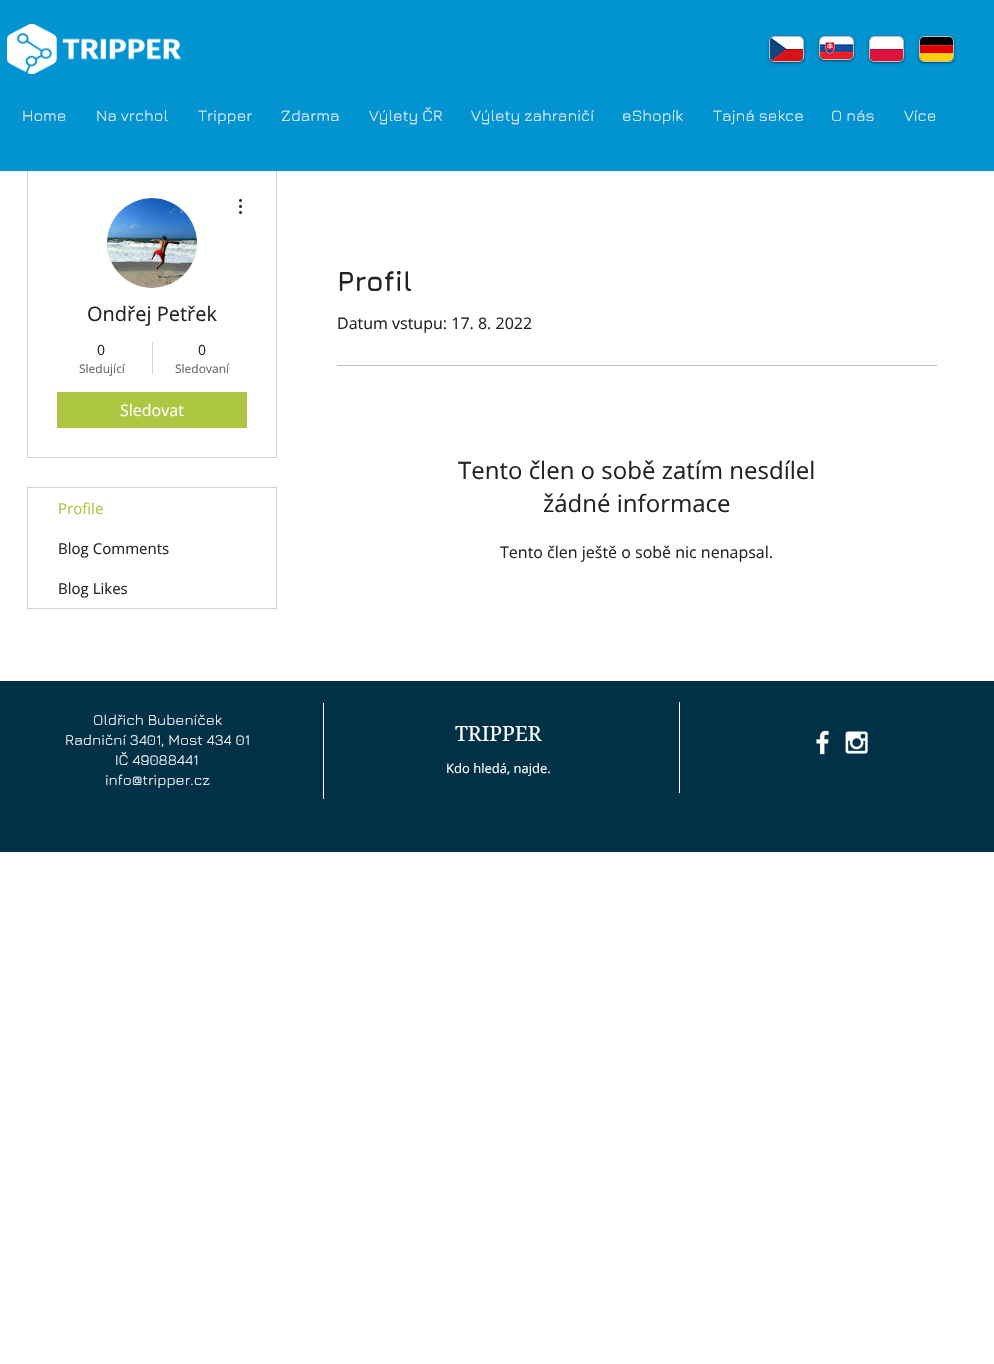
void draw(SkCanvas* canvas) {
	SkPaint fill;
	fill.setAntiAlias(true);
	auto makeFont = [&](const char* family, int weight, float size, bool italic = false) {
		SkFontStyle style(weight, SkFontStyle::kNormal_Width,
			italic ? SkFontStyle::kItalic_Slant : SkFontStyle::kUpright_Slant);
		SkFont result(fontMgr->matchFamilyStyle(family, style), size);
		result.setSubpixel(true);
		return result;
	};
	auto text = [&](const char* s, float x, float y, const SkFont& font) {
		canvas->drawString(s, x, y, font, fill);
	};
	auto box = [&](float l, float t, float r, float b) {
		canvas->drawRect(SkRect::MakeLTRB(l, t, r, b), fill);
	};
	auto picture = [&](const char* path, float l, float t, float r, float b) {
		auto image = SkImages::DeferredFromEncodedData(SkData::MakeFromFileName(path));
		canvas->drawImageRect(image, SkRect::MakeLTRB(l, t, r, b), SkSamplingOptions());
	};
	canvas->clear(0xFFFFFFFF);
	fill.setStyle(SkPaint::kStroke_Style);
	fill.setStrokeWidth(1);
	fill.setColor(0xFFD3D3D3);
	canvas->drawRect(SkRect::MakeLTRB(27.5f, 168.5f, 276.5f, 457.5f), fill);
	fill.setStyle(SkPaint::kFill_Style);
	fill.setColor(0xFF0293D1);
	box(0, 0, 994, 171);
	picture("image0.png", 7, 24, 181, 74);
	fill.setColor(0x80000000);
	fill.setMaskFilter(SkMaskFilter::MakeBlur(kNormal_SkBlurStyle, 1.5f));
	canvas->drawRoundRect(SkRect::MakeLTRB(769, 37, 804, 63), 5, 5, fill);
	fill.setMaskFilter(nullptr);
	fill.setStyle(SkPaint::kStroke_Style);
	fill.setColor(0xFFBEBEBE);
	canvas->drawRoundRect(SkRect::MakeLTRB(769.5f, 36.5f, 803.5f, 61.5f), 4.5f, 4.5f, fill);
	picture("image1.png", 770, 37, 803, 61);
	fill.setStyle(SkPaint::kFill_Style);
	fill.setColor(0x80000000);
	fill.setMaskFilter(SkMaskFilter::MakeBlur(kNormal_SkBlurStyle, 1.5f));
	canvas->drawRoundRect(SkRect::MakeLTRB(819, 37, 854, 61), 5, 5, fill);
	fill.setMaskFilter(nullptr);
	fill.setStyle(SkPaint::kStroke_Style);
	fill.setColor(0xFFBEBEBE);
	canvas->drawRoundRect(SkRect::MakeLTRB(819.5f, 36.5f, 853.5f, 59.5f), 4.5f, 4.5f, fill);
	picture("image2.png", 820, 37, 853, 59);
	fill.setStyle(SkPaint::kFill_Style);
	fill.setColor(0x80000000);
	fill.setMaskFilter(SkMaskFilter::MakeBlur(kNormal_SkBlurStyle, 1.5f));
	canvas->drawRoundRect(SkRect::MakeLTRB(869, 37, 904, 63), 5, 5, fill);
	fill.setMaskFilter(nullptr);
	fill.setStyle(SkPaint::kStroke_Style);
	fill.setColor(0xFFBEBEBE);
	canvas->drawRoundRect(SkRect::MakeLTRB(869.5f, 36.5f, 903.5f, 61.5f), 4.5f, 4.5f, fill);
	picture("image3.png", 870, 37, 903, 61);
	fill.setStyle(SkPaint::kFill_Style);
	fill.setColor(0x80000000);
	fill.setMaskFilter(SkMaskFilter::MakeBlur(kNormal_SkBlurStyle, 1.5f));
	canvas->drawRoundRect(SkRect::MakeLTRB(919, 37, 954, 63), 5, 5, fill);
	fill.setMaskFilter(nullptr);
	fill.setStyle(SkPaint::kStroke_Style);
	fill.setColor(0xFFBEBEBE);
	canvas->drawRoundRect(SkRect::MakeLTRB(919.5f, 36.5f, 953.5f, 61.5f), 4.5f, 4.5f, fill);
	picture("image4.png", 920, 37, 953, 61);
	fill.setStyle(SkPaint::kFill_Style);
	fill.setColor(0xFFD8D8D8);
	canvas->drawCircle(152, 243, 45, fill);
	picture("image5.png", 107, 198, 197, 288);
	picture("image6.png", 239, 199, 242, 214);
	fill.setColor(0xFFD3D3D3);
	box(152, 342, 153, 374);
	fill.setColor(0xFFADC743);
	box(57, 392, 247, 428);
	fill.setStyle(SkPaint::kStroke_Style);
	fill.setColor(0xFFD3D3D3);
	canvas->drawRect(SkRect::MakeLTRB(27.5f, 487.5f, 276.5f, 608.5f), fill);
	fill.setStyle(SkPaint::kFill_Style);
	fill.setColor(0xFFBDBDBD);
	box(337, 365, 937, 366);
	fill.setColor(0xFF013146);
	box(0, 681, 994, 852);
	fill.setColor(0xFFFFFFFF);
	box(323, 703, 324, 799);
	box(679, 702, 680, 793);
	picture("image7.png", 816, 730, 829, 755);
	picture("image8.png", 845, 731, 868, 754);
	auto font1 = makeFont("Jura", 400, 16);
	fill.setColor(0xFFF0F0F0);
	text("Home", 22, 121, font1);
	text("Na vrchol", 96, 121, font1);
	text("Tripper", 198, 121, font1);
	text("Zdarma", 281, 121, font1);
	text("Výlety ČR", 369, 121, font1);
	text("Výlety zahraničí", 471, 121, font1);
	text("eShopík", 622, 121, font1);
	text("Tajná sekce", 713, 121, font1);
	text("O nás", 831, 121, font1);
	text("Více", 904, 121, font1);
	auto font2 = makeFont("Open Sans", 400, 20);
	fill.setColor(0xFF222222);
	text("Ondřej Petřek", 87, 321, font2);
	auto font3 = makeFont("Open Sans", 400, 14);
	text("0", 97, 355, font3);
	auto font4 = makeFont("Open Sans", 400, 12);
	fill.setColor(0xFF646464);
	text("Sledující", 79, 373, font4);
	fill.setColor(0xFF222222);
	text("0", 198, 355, font3);
	fill.setColor(0xFF646464);
	text("Sledovaní", 175, 373, font4);
	auto font5 = makeFont("Open Sans", 400, 16);
	fill.setColor(0xFFFFFFFF);
	text("Sledovat", 120, 416, font5);
	auto font6 = makeFont("Open Sans", 400, 15);
	fill.setColor(0xFFADC743);
	text("Profile", 58, 514, font6);
	fill.setColor(0xFF222222);
	text("Blog Comments", 58, 554, font6);
	text("Blog Likes", 58, 594, font6);
	auto font7 = makeFont("Jura", 700, 28);
	text("Profil", 337, 291, font7);
	text("Datum vstupu: 17. 8. 2022", 337, 329, font5);
	auto font8 = makeFont("Open Sans", 400, 24);
	text("Tento člen o sobě zatím nesdílel", 458, 479, font8);
	text("žádné informace", 543, 512, font8);
	text("Tento člen ještě o sobě nic nenapsal.", 500, 558, font5);
	auto font9 = makeFont("Jura", 400, 15);
	fill.setColor(0xFFFFFFFF);
	text("Oldřich Bubeníček", 93, 725, font9);
	text("Radniční 3401, Most 434 01", 65, 745, font9);
	text("IČ 49088441", 115, 765, font9);
	text("info@tripper.cz", 105, 785, font9);
	auto font10 = makeFont("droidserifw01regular", 400, 21);
	text("TRIPPER", 455, 741, font10);
	auto font11 = makeFont("Open Sans", 400, 13);
	text("Kdo hledá, najde.", 446, 773, font11);
}
